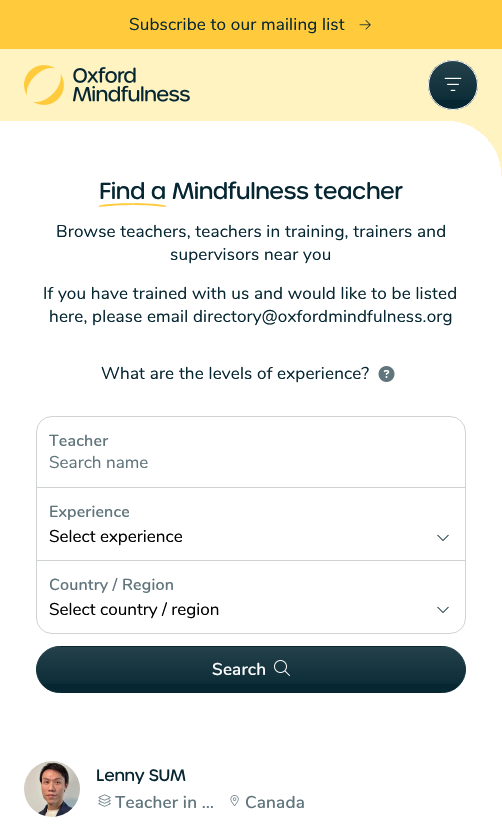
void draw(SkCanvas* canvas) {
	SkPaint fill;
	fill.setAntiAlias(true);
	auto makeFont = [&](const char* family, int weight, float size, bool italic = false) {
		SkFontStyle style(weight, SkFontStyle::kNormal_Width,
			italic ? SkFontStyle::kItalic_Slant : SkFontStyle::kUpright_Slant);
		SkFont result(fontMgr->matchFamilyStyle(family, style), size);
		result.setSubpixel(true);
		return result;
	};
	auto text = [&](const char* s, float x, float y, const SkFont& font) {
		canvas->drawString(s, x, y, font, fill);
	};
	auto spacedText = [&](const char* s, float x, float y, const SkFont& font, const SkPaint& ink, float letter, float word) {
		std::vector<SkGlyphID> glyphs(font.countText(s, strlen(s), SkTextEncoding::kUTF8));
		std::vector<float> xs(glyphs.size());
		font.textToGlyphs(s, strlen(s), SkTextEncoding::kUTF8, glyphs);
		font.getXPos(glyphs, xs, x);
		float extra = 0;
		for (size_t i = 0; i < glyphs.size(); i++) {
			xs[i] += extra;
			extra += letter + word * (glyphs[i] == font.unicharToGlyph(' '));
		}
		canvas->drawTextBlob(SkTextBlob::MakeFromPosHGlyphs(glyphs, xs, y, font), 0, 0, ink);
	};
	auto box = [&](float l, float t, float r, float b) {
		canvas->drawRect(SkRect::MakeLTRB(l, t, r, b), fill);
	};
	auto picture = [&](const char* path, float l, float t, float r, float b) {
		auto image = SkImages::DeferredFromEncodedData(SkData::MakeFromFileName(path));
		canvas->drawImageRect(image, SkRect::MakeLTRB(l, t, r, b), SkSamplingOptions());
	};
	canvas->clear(0xFFFFFFFF);
	fill.setColor(0xFFFFCB3C);
	box(0, 0, 502, 49);
	picture("image0.png", 359, 20, 371, 30);
	fill.setColor(0xFFFFF3C2);
	box(0, 49, 502, 121);
	picture("image1.png", 24, 65, 190, 105);
	fill.setColor(0xFF062732);
	canvas->drawCircle(453, 85, 25, fill);
	canvas->save();
	canvas->clipPath(SkPathBuilder().moveTo(453, 60).cubicTo(467, 60, 478, 71, 478, 85).cubicTo(478, 99, 467, 110, 453, 110).cubicTo(439, 110, 428, 99, 428, 85).cubicTo(428, 71, 439, 60, 453, 60).close().detach(), true);
	{
		const SkColor colors[] = {0x1FFFFFFF, 0x00FFFFFF};
		const float stops[] = {0, 1};
		const SkPoint ends[] = {{453, 61}, {453, 109}};
		fill.setShader(SkGradientShader::MakeLinear(ends, colors, stops, 2, SkTileMode::kClamp));
		fill.setAlpha(255);
	}
	box(428, 61, 478, 100);
	canvas->restore();
	fill.setStyle(SkPaint::kStroke_Style);
	fill.setStrokeWidth(1);
	fill.setShader(nullptr);
	fill.setColor(0xFFFFFFFF);
	canvas->drawCircle(453, 85, 24.5f, fill);
	picture("image2.png", 444, 77, 462, 91);
	fill.setStyle(SkPaint::kFill_Style);
	{
		const SkColor colors[] = {0xFFFFFFFF, 0xFFFFF3C2};
		const float stops[] = {0.7f, 0.7f};
		fill.setShader(SkGradientShader::MakeRadial({446, 176}, 79, colors, stops, 2, SkTileMode::kClamp));
		fill.setAlpha(255);
	}
	box(455, 121, 502, 176);
	picture("image3.png", 99, 203, 166, 207);
	picture("image4.png", 378, 366, 395, 382);
	fill.setStyle(SkPaint::kStroke_Style);
	fill.setShader(nullptr);
	fill.setColor(0xFFD0D3D3);
	canvas->drawRoundRect(SkRect::MakeLTRB(36.5f, 416.5f, 465.5f, 633.5f), 15.5f, 15.5f, fill);
	fill.setStyle(SkPaint::kFill_Style);
	box(37, 487, 465, 488);
	box(37, 560, 465, 561);
	picture("image5.png", 437, 534, 449, 541);
	picture("image5.png", 437, 606, 449, 613);
	fill.setColor(0xFF062732);
	canvas->drawRoundRect(SkRect::MakeLTRB(36.5f, 646.5f, 465.5f, 692.5f), 23, 23, fill);
	fill.setStyle(SkPaint::kStroke_Style);
	canvas->drawRoundRect(SkRect::MakeLTRB(36.5f, 646.5f, 465.5f, 692.5f), 23, 23, fill);
	picture("image6.png", 274, 660, 290, 676);
	fill.setStyle(SkPaint::kFill_Style);
	{
		const SkColor colors[] = {0x1FFFFFFF, 0x00FFFFFF};
		const float stops[] = {0, 1};
		const SkPoint ends[] = {{251, 647}, {251, 692}};
		fill.setShader(SkGradientShader::MakeLinear(ends, colors, stops, 2, SkTileMode::kClamp));
		fill.setAlpha(255);
	}
	box(37, 647, 465, 684);
	picture("image7.png", 24, 761, 80, 817);
	picture("image8.png", 98, 794, 111, 807);
	picture("image9.png", 230, 795, 239, 806);
	auto font1 = makeFont("Nunito", 400, 17.1f);
	fill.setShader(nullptr);
	fill.setColor(0xFF062732);
	spacedText("Subscribe to our mailing list", 129, 30, font1, fill, 0.17f, 0);
	auto font2 = makeFont("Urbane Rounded", 500, 22.4f);
	spacedText("Find a", 99, 199, font2, fill, -0.5f, 0);
	spacedText("Mindfulness teacher", 172, 199, font2, fill, -0.5f, 0);
	spacedText("Browse teachers, teachers in training, trainers and", 56, 237, font1, fill, 0.17f, 0);
	spacedText("supervisors near you", 170, 260, font1, fill, 0.17f, 0);
	spacedText("If you have trained with us and would like to be listed", 43, 299, font1, fill, 0.17f, 0);
	spacedText("here, please email directory@oxfordmindfulness.org", 49, 322, font1, fill, 0.17f, 0);
	spacedText("What are the levels of experience?", 101, 379, font1, fill, 0.17f, 0);
	auto font3 = makeFont("Nunito", 600, 16);
	fill.setColor(0xFF60757C);
	spacedText("Teacher", 49, 446, font3, fill, 0.17f, 0);
	text("Search name", 49, 468, font1);
	spacedText("Experience", 49, 517, font3, fill, 0.17f, 0);
	fill.setColor(0xFF000000);
	text("Select experience", 49, 542, font1);
	fill.setColor(0xFF60757C);
	spacedText("Country / Region", 49, 590, font3, fill, 0.17f, 0);
	fill.setColor(0xFF000000);
	text("Select country / region", 49, 615, font1);
	auto font4 = makeFont("Nunito", 600, 17.1f);
	fill.setColor(0xFFFFFFFF);
	spacedText("Search", 212, 675, font4, fill, 0.17f, 0);
	auto font5 = makeFont("Urbane Rounded", 500, 16);
	fill.setColor(0xFF062732);
	spacedText("Lenny SUM", 96, 781, font5, fill, -0.25f, 0);
	fill.setColor(0xFF60757C);
	spacedText("Teacher in …", 115, 808, font4, fill, 0.17f, 0);
	spacedText("Canada", 245, 808, font4, fill, 0.17f, 0);
}
